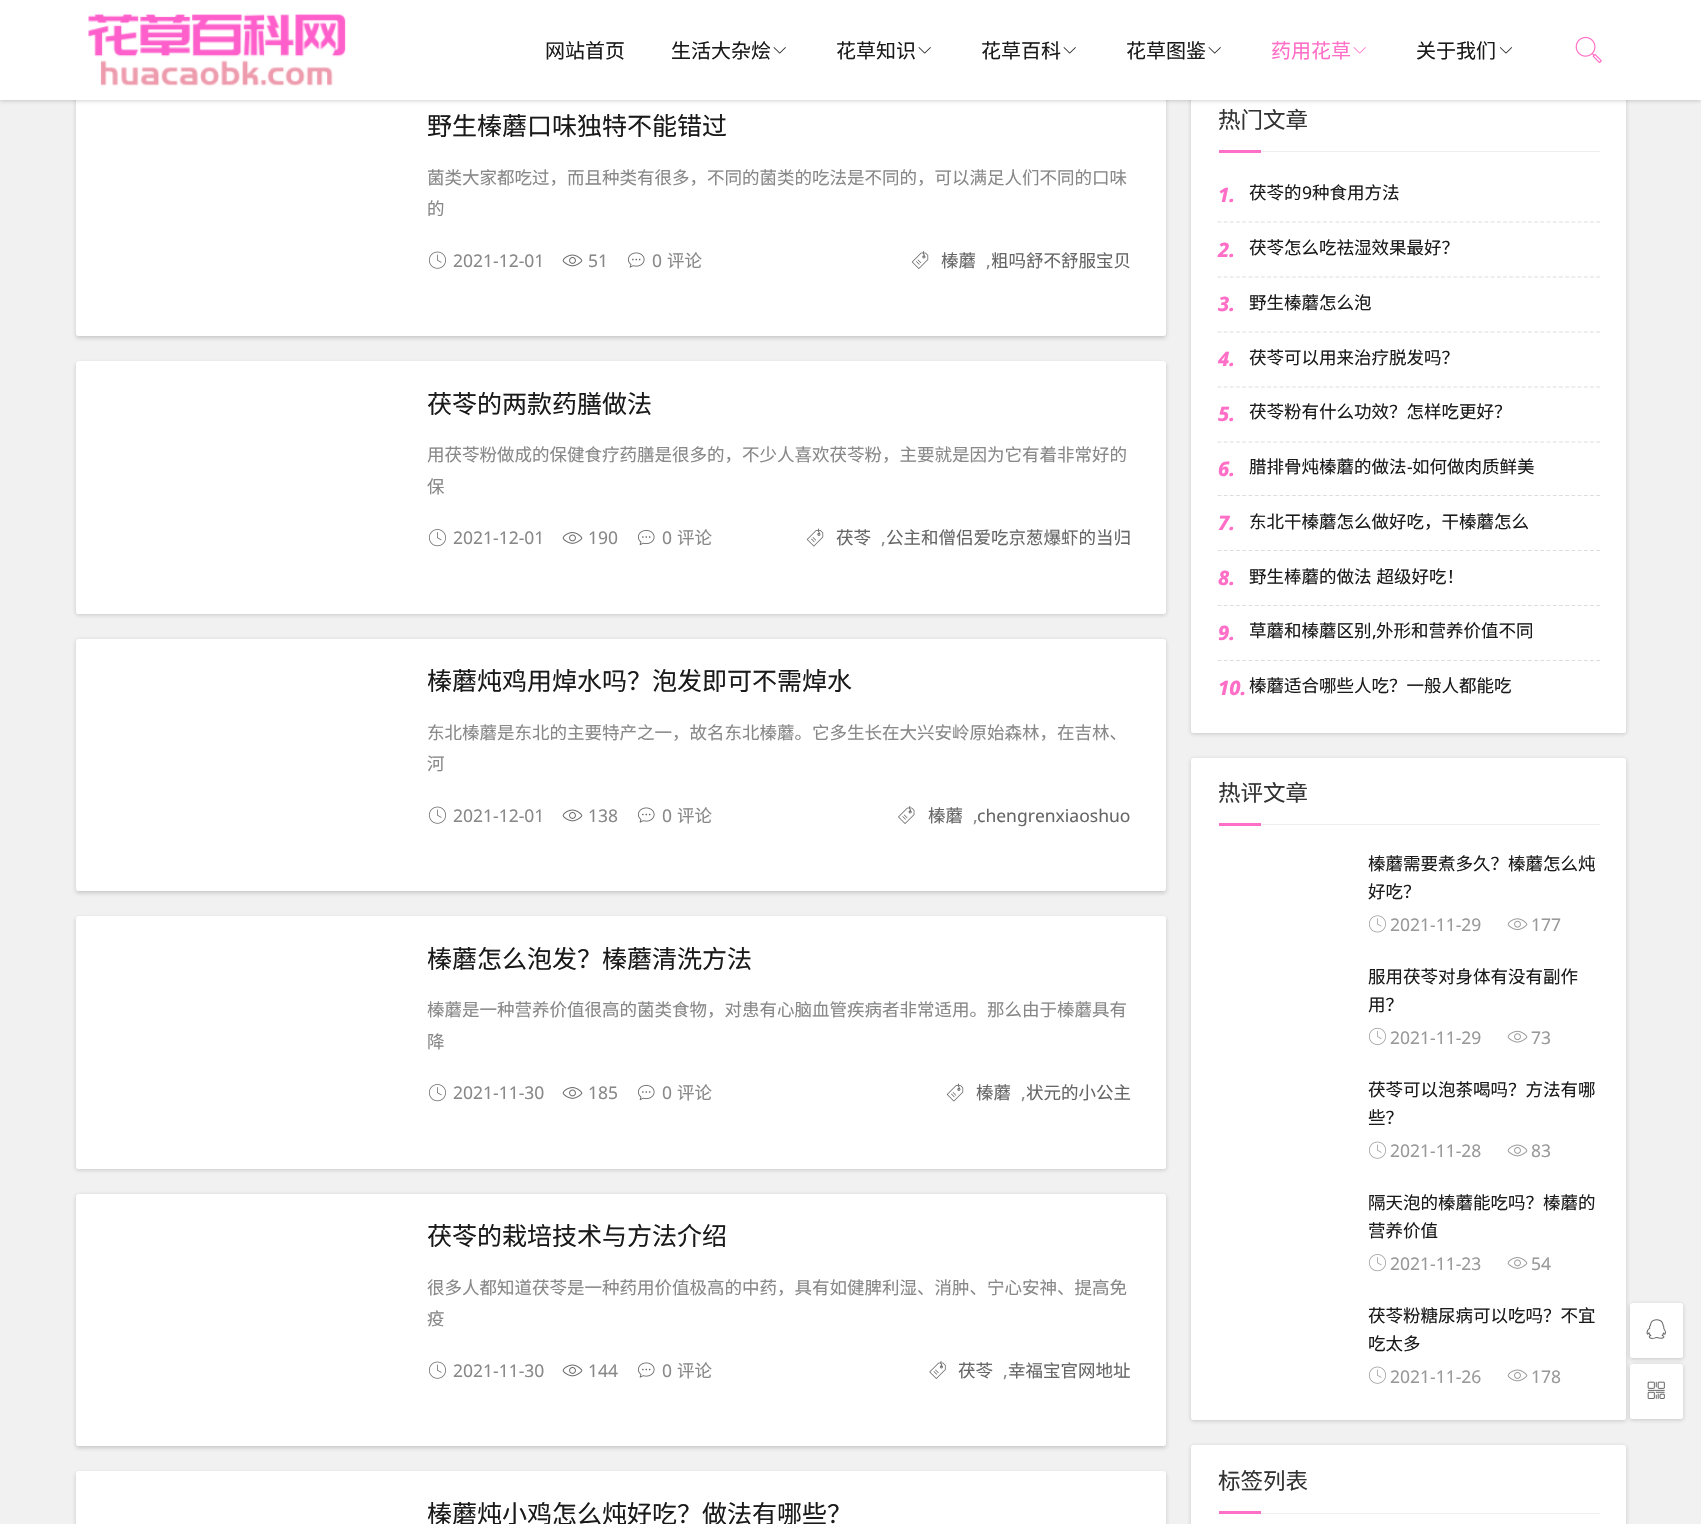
void draw(SkCanvas* canvas) {
	SkPaint fill;
	fill.setAntiAlias(true);
	auto makeFont = [&](const char* family, int weight, float size, bool italic = false) {
		SkFontStyle style(weight, SkFontStyle::kNormal_Width,
			italic ? SkFontStyle::kItalic_Slant : SkFontStyle::kUpright_Slant);
		SkFont result(fontMgr->matchFamilyStyle(family, style), size);
		result.setSubpixel(true);
		return result;
	};
	auto text = [&](const char* s, float x, float y, const SkFont& font) {
		canvas->drawString(s, x, y, font, fill);
	};
	auto spacedText = [&](const char* s, float x, float y, const SkFont& font, const SkPaint& ink, float letter, float word) {
		std::vector<SkGlyphID> glyphs(font.countText(s, strlen(s), SkTextEncoding::kUTF8));
		std::vector<float> xs(glyphs.size());
		font.textToGlyphs(s, strlen(s), SkTextEncoding::kUTF8, glyphs);
		font.getXPos(glyphs, xs, x);
		float extra = 0;
		for (size_t i = 0; i < glyphs.size(); i++) {
			xs[i] += extra;
			extra += letter + word * (glyphs[i] == font.unicharToGlyph(' '));
		}
		canvas->drawTextBlob(SkTextBlob::MakeFromPosHGlyphs(glyphs, xs, y, font), 0, 0, ink);
	};
	auto box = [&](float l, float t, float r, float b) {
		canvas->drawRect(SkRect::MakeLTRB(l, t, r, b), fill);
	};
	auto roundBox = [&](float l, float t, float r, float b, float radius) {
		canvas->drawRoundRect(SkRect::MakeLTRB(l, t, r, b), radius, radius, fill);
	};
	auto picture = [&](const char* path, float l, float t, float r, float b) {
		auto image = SkImages::DeferredFromEncodedData(SkData::MakeFromFileName(path));
		canvas->drawImageRect(image, SkRect::MakeLTRB(l, t, r, b), SkSamplingOptions());
	};
	canvas->clear(0xFFF1F1F1);
	fill.setColor(0x331A1A1A);
	fill.setMaskFilter(SkMaskFilter::MakeBlur(kNormal_SkBlurStyle, 2));
	canvas->drawRoundRect(SkRect::MakeLTRB(76, 85, 1166, 338), 2.5f, 2.5f, fill);
	fill.setMaskFilter(nullptr);
	fill.setColor(0xFFFFFFFF);
	roundBox(76, 84, 1166, 336, 2.5f);
	fill.setColor(0x331A1A1A);
	fill.setMaskFilter(SkMaskFilter::MakeBlur(kNormal_SkBlurStyle, 2));
	canvas->drawRoundRect(SkRect::MakeLTRB(1191, 85, 1626, 734), 2.5f, 2.5f, fill);
	fill.setMaskFilter(nullptr);
	fill.setColor(0xFFFFFFFF);
	roundBox(1191, 84, 1626, 733, 2.5f);
	fill.setColor(0x331A1A1A);
	fill.setMaskFilter(SkMaskFilter::MakeBlur(kNormal_SkBlurStyle, 2));
	canvas->drawRect(SkRect::MakeLTRB(0, 1, 1701, 101), fill);
	fill.setMaskFilter(nullptr);
	fill.setColor(0xFFFFFFFF);
	box(0, 0, 1701, 100);
	picture("image0.png", 88, 13, 346, 86);
	picture("image1.png", 773, 47, 786, 54);
	picture("image1.png", 918, 47, 931, 54);
	picture("image1.png", 1063, 47, 1076, 54);
	picture("image1.png", 1208, 47, 1221, 54);
	picture("image2.png", 1353, 47, 1366, 54);
	picture("image3.png", 1499, 47, 1512, 54);
	picture("image4.png", 1575, 36, 1602, 64);
	picture("image5.png", 428, 251, 446, 269);
	picture("image6.png", 562, 254, 583, 267);
	picture("image7.png", 627, 252, 645, 268);
	picture("image8.png", 911, 251, 929, 269);
	fill.setColor(0x331A1A1A);
	fill.setMaskFilter(SkMaskFilter::MakeBlur(kNormal_SkBlurStyle, 2));
	canvas->drawRoundRect(SkRect::MakeLTRB(76, 363, 1166, 615), 2.5f, 2.5f, fill);
	fill.setMaskFilter(nullptr);
	fill.setColor(0xFFFFFFFF);
	roundBox(76, 361, 1166, 614, 2.5f);
	picture("image9.png", 428, 529, 446, 547);
	picture("image10.png", 562, 532, 583, 544);
	picture("image11.png", 638, 530, 655, 546);
	picture("image12.png", 806, 528, 824, 547);
	fill.setColor(0x331A1A1A);
	fill.setMaskFilter(SkMaskFilter::MakeBlur(kNormal_SkBlurStyle, 2));
	canvas->drawRoundRect(SkRect::MakeLTRB(76, 640, 1166, 893), 2.5f, 2.5f, fill);
	fill.setMaskFilter(nullptr);
	fill.setColor(0xFFFFFFFF);
	roundBox(76, 639, 1166, 891, 2.5f);
	picture("image5.png", 428, 806, 446, 824);
	picture("image6.png", 562, 809, 583, 822);
	picture("image7.png", 637, 807, 655, 823);
	picture("image13.png", 898, 806, 915, 824);
	fill.setColor(0x331A1A1A);
	fill.setMaskFilter(SkMaskFilter::MakeBlur(kNormal_SkBlurStyle, 2));
	canvas->drawRoundRect(SkRect::MakeLTRB(76, 918, 1166, 1170), 2.5f, 2.5f, fill);
	fill.setMaskFilter(nullptr);
	fill.setColor(0xFFFFFFFF);
	roundBox(76, 916, 1166, 1169, 2.5f);
	picture("image9.png", 428, 1084, 446, 1102);
	picture("image10.png", 562, 1087, 583, 1099);
	picture("image11.png", 638, 1085, 655, 1101);
	picture("image12.png", 946, 1083, 964, 1102);
	fill.setColor(0x331A1A1A);
	fill.setMaskFilter(SkMaskFilter::MakeBlur(kNormal_SkBlurStyle, 2));
	canvas->drawRoundRect(SkRect::MakeLTRB(76, 1195, 1166, 1448), 2.5f, 2.5f, fill);
	fill.setMaskFilter(nullptr);
	fill.setColor(0xFFFFFFFF);
	roundBox(76, 1194, 1166, 1446, 2.5f);
	picture("image5.png", 428, 1361, 446, 1379);
	picture("image6.png", 562, 1364, 583, 1377);
	picture("image7.png", 637, 1362, 655, 1378);
	picture("image14.png", 929, 1361, 946, 1379);
	fill.setColor(0x331A1A1A);
	fill.setMaskFilter(SkMaskFilter::MakeBlur(kNormal_SkBlurStyle, 2));
	canvas->drawRoundRect(SkRect::MakeLTRB(76, 1473, 1166, 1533), 2.5f, 2.5f, fill);
	fill.setMaskFilter(nullptr);
	fill.setColor(0xFFFFFFFF);
	roundBox(76, 1471, 1166, 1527, 2.5f);
	fill.setColor(0xFFEEEEEE);
	box(1218, 151, 1600, 152);
	fill.setColor(0xFFFF6EC7);
	box(1219, 150, 1261, 153);
	fill.setStyle(SkPaint::kStroke_Style);
	fill.setStrokeWidth(1.2f);
	fill.setColor(0xFFDDDDDD);
	fill.setPathEffect(SkDashPathEffect::Make({{3.75f, 2.46f}}, 0));
	canvas->drawPath(SkPathBuilder().moveTo(1217.5f, 222).lineTo(1600, 222).detach(), fill);
	fill.setPathEffect(nullptr);
	fill.setPathEffect(SkDashPathEffect::Make({{3.75f, 2.46f}}, 0));
	canvas->drawPath(SkPathBuilder().moveTo(1217.5f, 277).lineTo(1600, 277).detach(), fill);
	fill.setPathEffect(nullptr);
	fill.setPathEffect(SkDashPathEffect::Make({{3.75f, 2.46f}}, 0));
	canvas->drawPath(SkPathBuilder().moveTo(1217.5f, 332).lineTo(1600, 332).detach(), fill);
	fill.setPathEffect(nullptr);
	fill.setPathEffect(SkDashPathEffect::Make({{3.75f, 2.46f}}, 0));
	canvas->drawPath(SkPathBuilder().moveTo(1217.5f, 387).lineTo(1600, 387).detach(), fill);
	fill.setPathEffect(nullptr);
	fill.setPathEffect(SkDashPathEffect::Make({{3.75f, 2.46f}}, 0));
	canvas->drawPath(SkPathBuilder().moveTo(1217.5f, 442).lineTo(1600, 442).detach(), fill);
	fill.setPathEffect(nullptr);
	fill.setPathEffect(SkDashPathEffect::Make({{3.75f, 2.46f}}, 0));
	canvas->drawPath(SkPathBuilder().moveTo(1217.5f, 495.5f).lineTo(1600, 495.5f).detach(), fill);
	fill.setPathEffect(nullptr);
	fill.setPathEffect(SkDashPathEffect::Make({{3.75f, 2.46f}}, 0));
	canvas->drawPath(SkPathBuilder().moveTo(1217.5f, 550.5f).lineTo(1600, 550.5f).detach(), fill);
	fill.setPathEffect(nullptr);
	fill.setPathEffect(SkDashPathEffect::Make({{3.75f, 2.46f}}, 0));
	canvas->drawPath(SkPathBuilder().moveTo(1217.5f, 605.5f).lineTo(1600, 605.5f).detach(), fill);
	fill.setPathEffect(nullptr);
	fill.setPathEffect(SkDashPathEffect::Make({{3.75f, 2.46f}}, 0));
	canvas->drawPath(SkPathBuilder().moveTo(1217.5f, 660.5f).lineTo(1600, 660.5f).detach(), fill);
	fill.setPathEffect(nullptr);
	fill.setStyle(SkPaint::kFill_Style);
	fill.setColor(0x331A1A1A);
	fill.setMaskFilter(SkMaskFilter::MakeBlur(kNormal_SkBlurStyle, 2));
	canvas->drawRoundRect(SkRect::MakeLTRB(1191, 759, 1626, 1421), 2.5f, 2.5f, fill);
	fill.setMaskFilter(nullptr);
	fill.setColor(0xFFFFFFFF);
	roundBox(1191, 758, 1626, 1420, 2.5f);
	fill.setColor(0xFFEEEEEE);
	box(1218, 824, 1600, 825);
	fill.setColor(0xFFFF6EC7);
	box(1219, 823, 1261, 826);
	picture("image15.png", 1369, 915, 1386, 933);
	picture("image16.png", 1507, 918, 1528, 931);
	picture("image17.png", 1368, 1027, 1386, 1045);
	picture("image18.png", 1507, 1030, 1528, 1043);
	picture("image19.png", 1369, 1141, 1386, 1159);
	picture("image20.png", 1507, 1144, 1528, 1157);
	picture("image21.png", 1368, 1254, 1386, 1272);
	picture("image22.png", 1507, 1257, 1528, 1269);
	picture("image19.png", 1369, 1366, 1386, 1384);
	picture("image20.png", 1507, 1369, 1528, 1382);
	fill.setColor(0x331A1A1A);
	fill.setMaskFilter(SkMaskFilter::MakeBlur(kNormal_SkBlurStyle, 2));
	canvas->drawRoundRect(SkRect::MakeLTRB(1191, 1446, 1626, 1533), 2.5f, 2.5f, fill);
	fill.setMaskFilter(nullptr);
	fill.setColor(0xFFFFFFFF);
	roundBox(1191, 1445, 1626, 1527, 2.5f);
	fill.setColor(0xFFEEEEEE);
	box(1218, 1513, 1600, 1514);
	fill.setColor(0xFFFF6EC7);
	box(1219, 1511, 1261, 1514);
	fill.setColor(0x331A1A1A);
	fill.setMaskFilter(SkMaskFilter::MakeBlur(kNormal_SkBlurStyle, 2));
	canvas->drawRoundRect(SkRect::MakeLTRB(1630, 1304, 1683, 1359), 2.5f, 2.5f, fill);
	fill.setMaskFilter(nullptr);
	fill.setColor(0xFFFFFFFF);
	roundBox(1630, 1303, 1683, 1358, 2.5f);
	picture("image23.png", 1646, 1319, 1666, 1339);
	fill.setColor(0x331A1A1A);
	fill.setMaskFilter(SkMaskFilter::MakeBlur(kNormal_SkBlurStyle, 2));
	canvas->drawRoundRect(SkRect::MakeLTRB(1630, 1365, 1683, 1420), 2.5f, 2.5f, fill);
	fill.setMaskFilter(nullptr);
	fill.setColor(0xFFFFFFFF);
	roundBox(1630, 1364, 1683, 1419, 2.5f);
	picture("image24.png", 1647, 1381, 1665, 1399);
	auto font1 = makeFont("Noto Sans CJK SC", 400, 20);
	fill.setColor(0xFF1A1A1A);
	text("网站首页", 545, 58, font1);
	text("生活大杂烩", 671, 58, font1);
	text("花草知识", 836, 58, font1);
	text("花草百科", 981, 58, font1);
	text("花草图鉴", 1126, 58, font1);
	fill.setColor(0xFFFF6EC7);
	text("药用花草", 1271, 58, font1);
	fill.setColor(0xFF1A1A1A);
	text("关于我们", 1416, 58, font1);
	auto font2 = makeFont("Noto Sans CJK SC", 400, 25);
	text("野生榛蘑口味独特不能错过", 427, 135, font2);
	auto font3 = makeFont("Noto Sans CJK SC", 400, 17.5f);
	fill.setColor(0xFF888888);
	text("菌类大家都吃过，而且种类有很多，不同的菌类的吃法是不同的，可以满足人们不同的口味", 427, 184, font3);
	text("的", 427, 215, font3);
	auto font4 = makeFont("Noto Sans", 400, 17.5f);
	text("2021-12-01", 453, 267, font4);
	text("51", 588, 267, font4);
	text("0", 652, 267, font4);
	text("评论", 667, 267, font3);
	fill.setColor(0xFF666666);
	text("榛蘑", 941, 267, font3);
	fill.setColor(0xFF888888);
	text(",", 986, 267, font4);
	fill.setColor(0xFF666666);
	text("粗吗舒不舒服宝贝", 991, 267, font3);
	fill.setColor(0xFF1A1A1A);
	text("茯苓的两款药膳做法", 427, 413, font2);
	fill.setColor(0xFF888888);
	text("用茯苓粉做成的保健食疗药膳是很多的，不少人喜欢茯苓粉，主要就是因为它有着非常好的", 427, 461, font3);
	text("保", 427, 493, font3);
	text("2021-12-01", 453, 544, font4);
	text("190", 588, 544, font4);
	text("0", 662, 544, font4);
	text("评论", 677, 544, font3);
	fill.setColor(0xFF666666);
	text("茯苓", 836, 544, font3);
	fill.setColor(0xFF888888);
	text(",", 881, 544, font4);
	fill.setColor(0xFF666666);
	text("公主和僧侣爱吃京葱爆虾的当归", 886, 544, font3);
	fill.setColor(0xFF1A1A1A);
	text("榛蘑炖鸡用焯水吗？泡发即可不需焯水", 427, 690, font2);
	fill.setColor(0xFF888888);
	text("东北榛蘑是东北的主要特产之一，故名东北榛蘑。它多生长在大兴安岭原始森林，在吉林、", 427, 739, font3);
	text("河", 427, 770, font3);
	text("2021-12-01", 453, 822, font4);
	text("138", 588, 822, font4);
	text("0", 662, 822, font4);
	text("评论", 677, 822, font3);
	fill.setColor(0xFF666666);
	text("榛蘑", 928, 822, font3);
	fill.setColor(0xFF888888);
	text(",", 973, 822, font4);
	fill.setColor(0xFF666666);
	text("chengrenxiaoshuo", 977, 822, font4);
	fill.setColor(0xFF1A1A1A);
	text("榛蘑怎么泡发？榛蘑清洗方法", 427, 968, font2);
	fill.setColor(0xFF888888);
	text("榛蘑是一种营养价值很高的菌类食物，对患有心脑血管疾病者非常适用。那么由于榛蘑具有", 427, 1016, font3);
	text("降", 427, 1048, font3);
	text("2021-11-30", 453, 1099, font4);
	text("185", 588, 1099, font4);
	text("0", 662, 1099, font4);
	text("评论", 677, 1099, font3);
	fill.setColor(0xFF666666);
	text("榛蘑", 976, 1099, font3);
	fill.setColor(0xFF888888);
	text(",", 1021, 1099, font4);
	fill.setColor(0xFF666666);
	text("状元的小公主", 1026, 1099, font3);
	fill.setColor(0xFF1A1A1A);
	text("茯苓的栽培技术与方法介绍", 427, 1245, font2);
	fill.setColor(0xFF888888);
	text("很多人都知道茯苓是一种药用价值极高的中药，具有如健脾利湿、消肿、宁心安神、提高免", 427, 1294, font3);
	text("疫", 427, 1325, font3);
	text("2021-11-30", 453, 1377, font4);
	text("144", 588, 1377, font4);
	text("0", 662, 1377, font4);
	text("评论", 677, 1377, font3);
	fill.setColor(0xFF666666);
	text("茯苓", 958, 1377, font3);
	fill.setColor(0xFF888888);
	text(",", 1003, 1377, font4);
	fill.setColor(0xFF666666);
	text("幸福宝官网地址", 1008, 1377, font3);
	fill.setColor(0xFF1A1A1A);
	text("榛蘑炖小鸡怎么炖好吃？做法有哪些？", 427, 1523, font2);
	auto font5 = makeFont("Noto Sans CJK SC", 400, 22.5f);
	fill.setColor(0xFF333333);
	text("热门文章", 1218, 128, font5);
	auto font6 = makeFont("Noto Sans", 800, 20, true);
	fill.setColor(0xFFFF6EC7);
	text("1.", 1218, 202, font6);
	fill.setColor(0xFF1A1A1A);
	text("茯苓的", 1249, 199, font3);
	text("9", 1302, 199, font4);
	text("种食用方法", 1312, 199, font3);
	fill.setColor(0xFFFF6EC7);
	text("2.", 1218, 257, font6);
	fill.setColor(0xFF1A1A1A);
	text("茯苓怎么吃祛湿效果最好？", 1249, 254, font3);
	fill.setColor(0xFFFF6EC7);
	text("3.", 1218, 311, font6);
	fill.setColor(0xFF1A1A1A);
	text("野生榛蘑怎么泡", 1249, 309, font3);
	fill.setColor(0xFFFF6EC7);
	text("4.", 1218, 366, font6);
	fill.setColor(0xFF1A1A1A);
	text("茯苓可以用来治疗脱发吗？", 1249, 364, font3);
	fill.setColor(0xFFFF6EC7);
	text("5.", 1218, 421, font6);
	fill.setColor(0xFF1A1A1A);
	text("茯苓粉有什么功效？怎样吃更好？", 1249, 418, font3);
	fill.setColor(0xFFFF6EC7);
	text("6.", 1218, 476, font6);
	fill.setColor(0xFF1A1A1A);
	text("腊排骨炖榛蘑的做法", 1249, 473, font3);
	text("-", 1407, 473, font4);
	text("如何做肉质鲜美", 1412, 473, font3);
	fill.setColor(0xFFFF6EC7);
	text("7.", 1218, 530, font6);
	fill.setColor(0xFF1A1A1A);
	text("东北干榛蘑怎么做好吃，干榛蘑怎么", 1249, 528, font3);
	fill.setColor(0xFFFF6EC7);
	text("8.", 1218, 585, font6);
	fill.setColor(0xFF1A1A1A);
	spacedText("野生棒蘑的做法 超级好吃！", 1249, 583, font3, fill, 0, 1);
	fill.setColor(0xFFFF6EC7);
	text("9.", 1218, 640, font6);
	fill.setColor(0xFF1A1A1A);
	text("草蘑和榛蘑区别", 1249, 637, font3);
	text(",", 1372, 637, font4);
	text("外形和营养价值不同", 1376, 637, font3);
	fill.setColor(0xFFFF6EC7);
	text("10.", 1218, 695, font6);
	fill.setColor(0xFF1A1A1A);
	text("榛蘑适合哪些人吃？一般人都能吃", 1249, 692, font3);
	fill.setColor(0xFF333333);
	text("热评文章", 1218, 801, font5);
	fill.setColor(0xFF1A1A1A);
	text("榛蘑需要煮多久？榛蘑怎么炖", 1368, 870, font3);
	text("好吃？", 1368, 898, font3);
	fill.setColor(0xFF999999);
	text("2021-11-29", 1390, 931, font4);
	text("177", 1531, 931, font4);
	fill.setColor(0xFF1A1A1A);
	text("服用茯苓对身体有没有副作", 1368, 983, font3);
	text("用？", 1368, 1011, font3);
	fill.setColor(0xFF999999);
	text("2021-11-29", 1390, 1044, font4);
	text("73", 1531, 1044, font4);
	fill.setColor(0xFF1A1A1A);
	text("茯苓可以泡茶喝吗？方法有哪", 1368, 1096, font3);
	text("些？", 1368, 1124, font3);
	fill.setColor(0xFF999999);
	text("2021-11-28", 1390, 1157, font4);
	text("83", 1531, 1157, font4);
	fill.setColor(0xFF1A1A1A);
	text("隔天泡的榛蘑能吃吗？榛蘑的", 1368, 1209, font3);
	text("营养价值", 1368, 1237, font3);
	fill.setColor(0xFF999999);
	text("2021-11-23", 1390, 1270, font4);
	text("54", 1531, 1270, font4);
	fill.setColor(0xFF1A1A1A);
	text("茯苓粉糖尿病可以吃吗？不宜", 1368, 1322, font3);
	text("吃太多", 1368, 1350, font3);
	fill.setColor(0xFF999999);
	text("2021-11-26", 1390, 1383, font4);
	text("178", 1531, 1383, font4);
	fill.setColor(0xFF333333);
	text("标签列表", 1218, 1489, font5);
}
